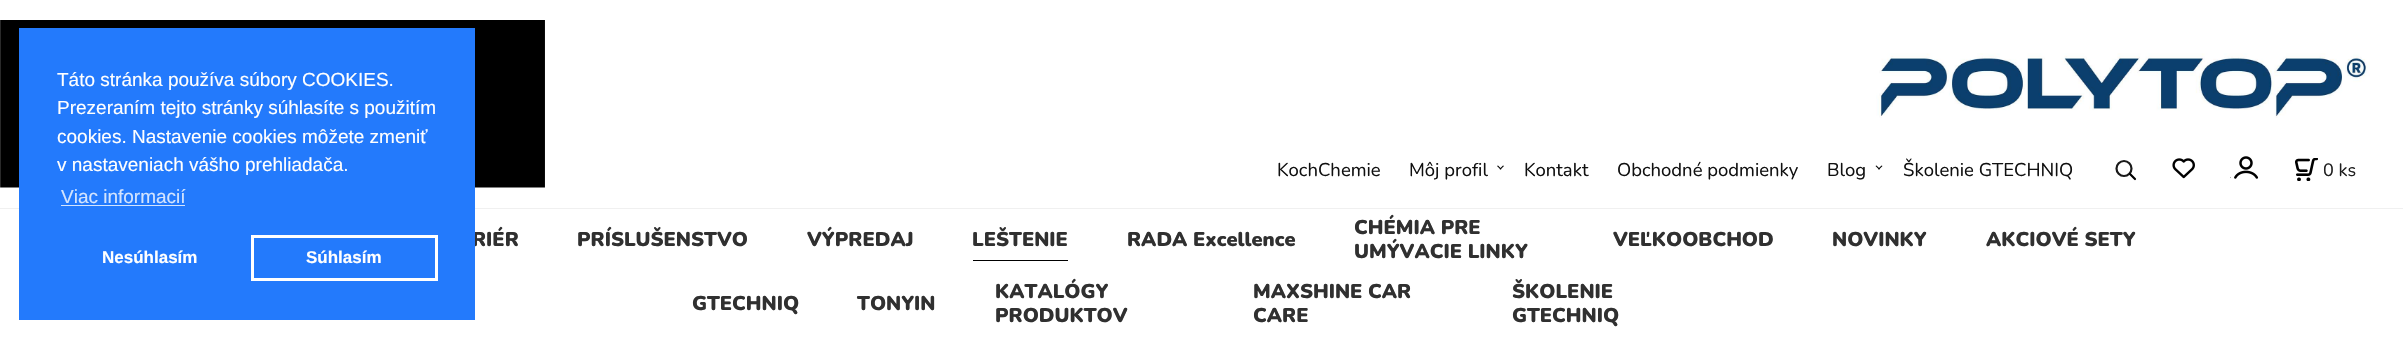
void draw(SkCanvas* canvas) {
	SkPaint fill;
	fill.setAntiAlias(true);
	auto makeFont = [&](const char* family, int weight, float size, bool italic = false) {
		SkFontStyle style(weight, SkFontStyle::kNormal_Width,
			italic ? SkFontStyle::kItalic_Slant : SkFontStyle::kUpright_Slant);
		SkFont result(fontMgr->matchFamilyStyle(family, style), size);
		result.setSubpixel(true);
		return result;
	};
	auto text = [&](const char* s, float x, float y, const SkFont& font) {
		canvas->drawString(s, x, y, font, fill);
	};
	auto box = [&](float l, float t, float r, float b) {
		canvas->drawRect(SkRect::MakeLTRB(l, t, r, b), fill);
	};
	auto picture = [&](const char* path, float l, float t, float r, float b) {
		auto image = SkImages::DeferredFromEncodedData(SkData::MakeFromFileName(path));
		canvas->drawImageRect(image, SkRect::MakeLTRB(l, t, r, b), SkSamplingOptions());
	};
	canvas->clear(0xFFFFFFFF);
	picture("image0.png", 0, 20, 545, 188);
	picture("image1.png", 1876, 53, 2370, 118);
	fill.setColor(0xFFF0F0F0);
	box(0, 208, 2403, 209);
	fill.setColor(0xFF000000);
	canvas->drawPath(SkPathBuilder().moveTo(1499.5f, 169).lineTo(1503, 165.5f).lineTo(1504, 166).lineTo(1500.5f, 169.5f).close().detach(), fill);
	canvas->drawPath(SkPathBuilder().moveTo(1497, 166).lineTo(1498, 165.5f).lineTo(1501.5f, 169).lineTo(1500.5f, 169.5f).close().detach(), fill);
	canvas->drawPath(SkPathBuilder().moveTo(1878, 169).lineTo(1881.5f, 165.5f).lineTo(1882.5f, 166).lineTo(1879, 169.5f).close().detach(), fill);
	canvas->drawPath(SkPathBuilder().moveTo(1875.5f, 166).lineTo(1876.5f, 165.5f).lineTo(1880, 169).lineTo(1879, 169.5f).close().detach(), fill);
	fill.setStyle(SkPaint::kStroke_Style);
	fill.setStrokeWidth(2.2f);
	fill.setColor(0xFF191919);
	canvas->drawCircle(2124, 168.5f, 7.5f, fill);
	fill.setStrokeCap(SkPaint::kRound_Cap);
	fill.setColor(0xFF000000);
	canvas->drawPath(SkPathBuilder().moveTo(2130, 174).lineTo(2135, 179).detach(), fill);
	picture("image2.png", 2172, 158, 2195, 179);
	picture("image3.png", 2230, 156, 2259, 179);
	picture("image4.png", 2295, 158, 2318, 181);
	fill.setStyle(SkPaint::kFill_Style);
	box(973, 260, 1068, 261);
	auto font1 = makeFont("Nunito", 400, 18.5f);
	fill.setColor(0xFF111111);
	text("KochChemie", 1277, 176, font1);
	text("Môj profil", 1409, 176, font1);
	text("Kontakt", 1524, 176, font1);
	text("Obchodné podmienky", 1617, 176, font1);
	text("Blog", 1827, 176, font1);
	text("Školenie GTECHNIQ", 1903, 176, font1);
	auto font2 = makeFont("Nunito", 400, 18);
	fill.setColor(0xFF202020);
	text("0 ks", 2323, 176, font2);
	auto font3 = makeFont("Nunito", 900, 20);
	fill.setColor(0xFF303030);
	text("RIÉR", 472, 246, font3);
	fill.setColor(0xFF237AFC);
	box(19, 28, 475, 320);
	auto font4 = makeFont("Liberation Sans", 400, 19);
	fill.setColor(0xFFD3E4FE);
	text("Viac informacií", 61, 203, font4);
	box(61, 205, 185, 206);
	fill.setStyle(SkPaint::kStroke_Style);
	fill.setStrokeWidth(3);
	fill.setStrokeCap(SkPaint::kButt_Cap);
	fill.setColor(0xFFFFFFFF);
	canvas->drawRect(SkRect::MakeLTRB(252.5f, 236.5f, 436.5f, 279.5f), fill);
	auto font5 = makeFont("Liberation Sans", 700, 17);
	fill.setStyle(SkPaint::kFill_Style);
	text("Súhlasím", 306, 263, font5);
	text("Nesúhlasím", 102, 263, font5);
	text("v nastaveniach vášho prehliadača.", 57, 171, font4);
	text("cookies. Nastavenie cookies môžete zmeniť", 57, 143, font4);
	text("Prezeraním tejto stránky súhlasíte s použitím", 57, 114, font4);
	text("Táto stránka používa súbory COOKIES.", 57, 86, font4);
	fill.setColor(0xFF303030);
	text("PRÍSLUŠENSTVO", 577, 246, font3);
	text("VÝPREDAJ", 807, 246, font3);
	text("LEŠTENIE", 972, 246, font3);
	text("RADA Excellence", 1127, 246, font3);
	text("CHÉMIA PRE", 1354, 234, font3);
	text("UMÝVACIE LINKY", 1354, 258, font3);
	text("VEĽKOOBCHOD", 1613, 246, font3);
	text("NOVINKY", 1832, 246, font3);
	text("AKCIOVÉ SETY", 1986, 246, font3);
	text("GTECHNIQ", 692, 310, font3);
	text("TONYIN", 857, 310, font3);
	text("KATALÓGY", 995, 298, font3);
	text("PRODUKTOV", 995, 322, font3);
	text("MAXSHINE CAR", 1253, 298, font3);
	text("CARE", 1253, 322, font3);
	text("ŠKOLENIE", 1512, 298, font3);
	text("GTECHNIQ", 1512, 322, font3);
}
